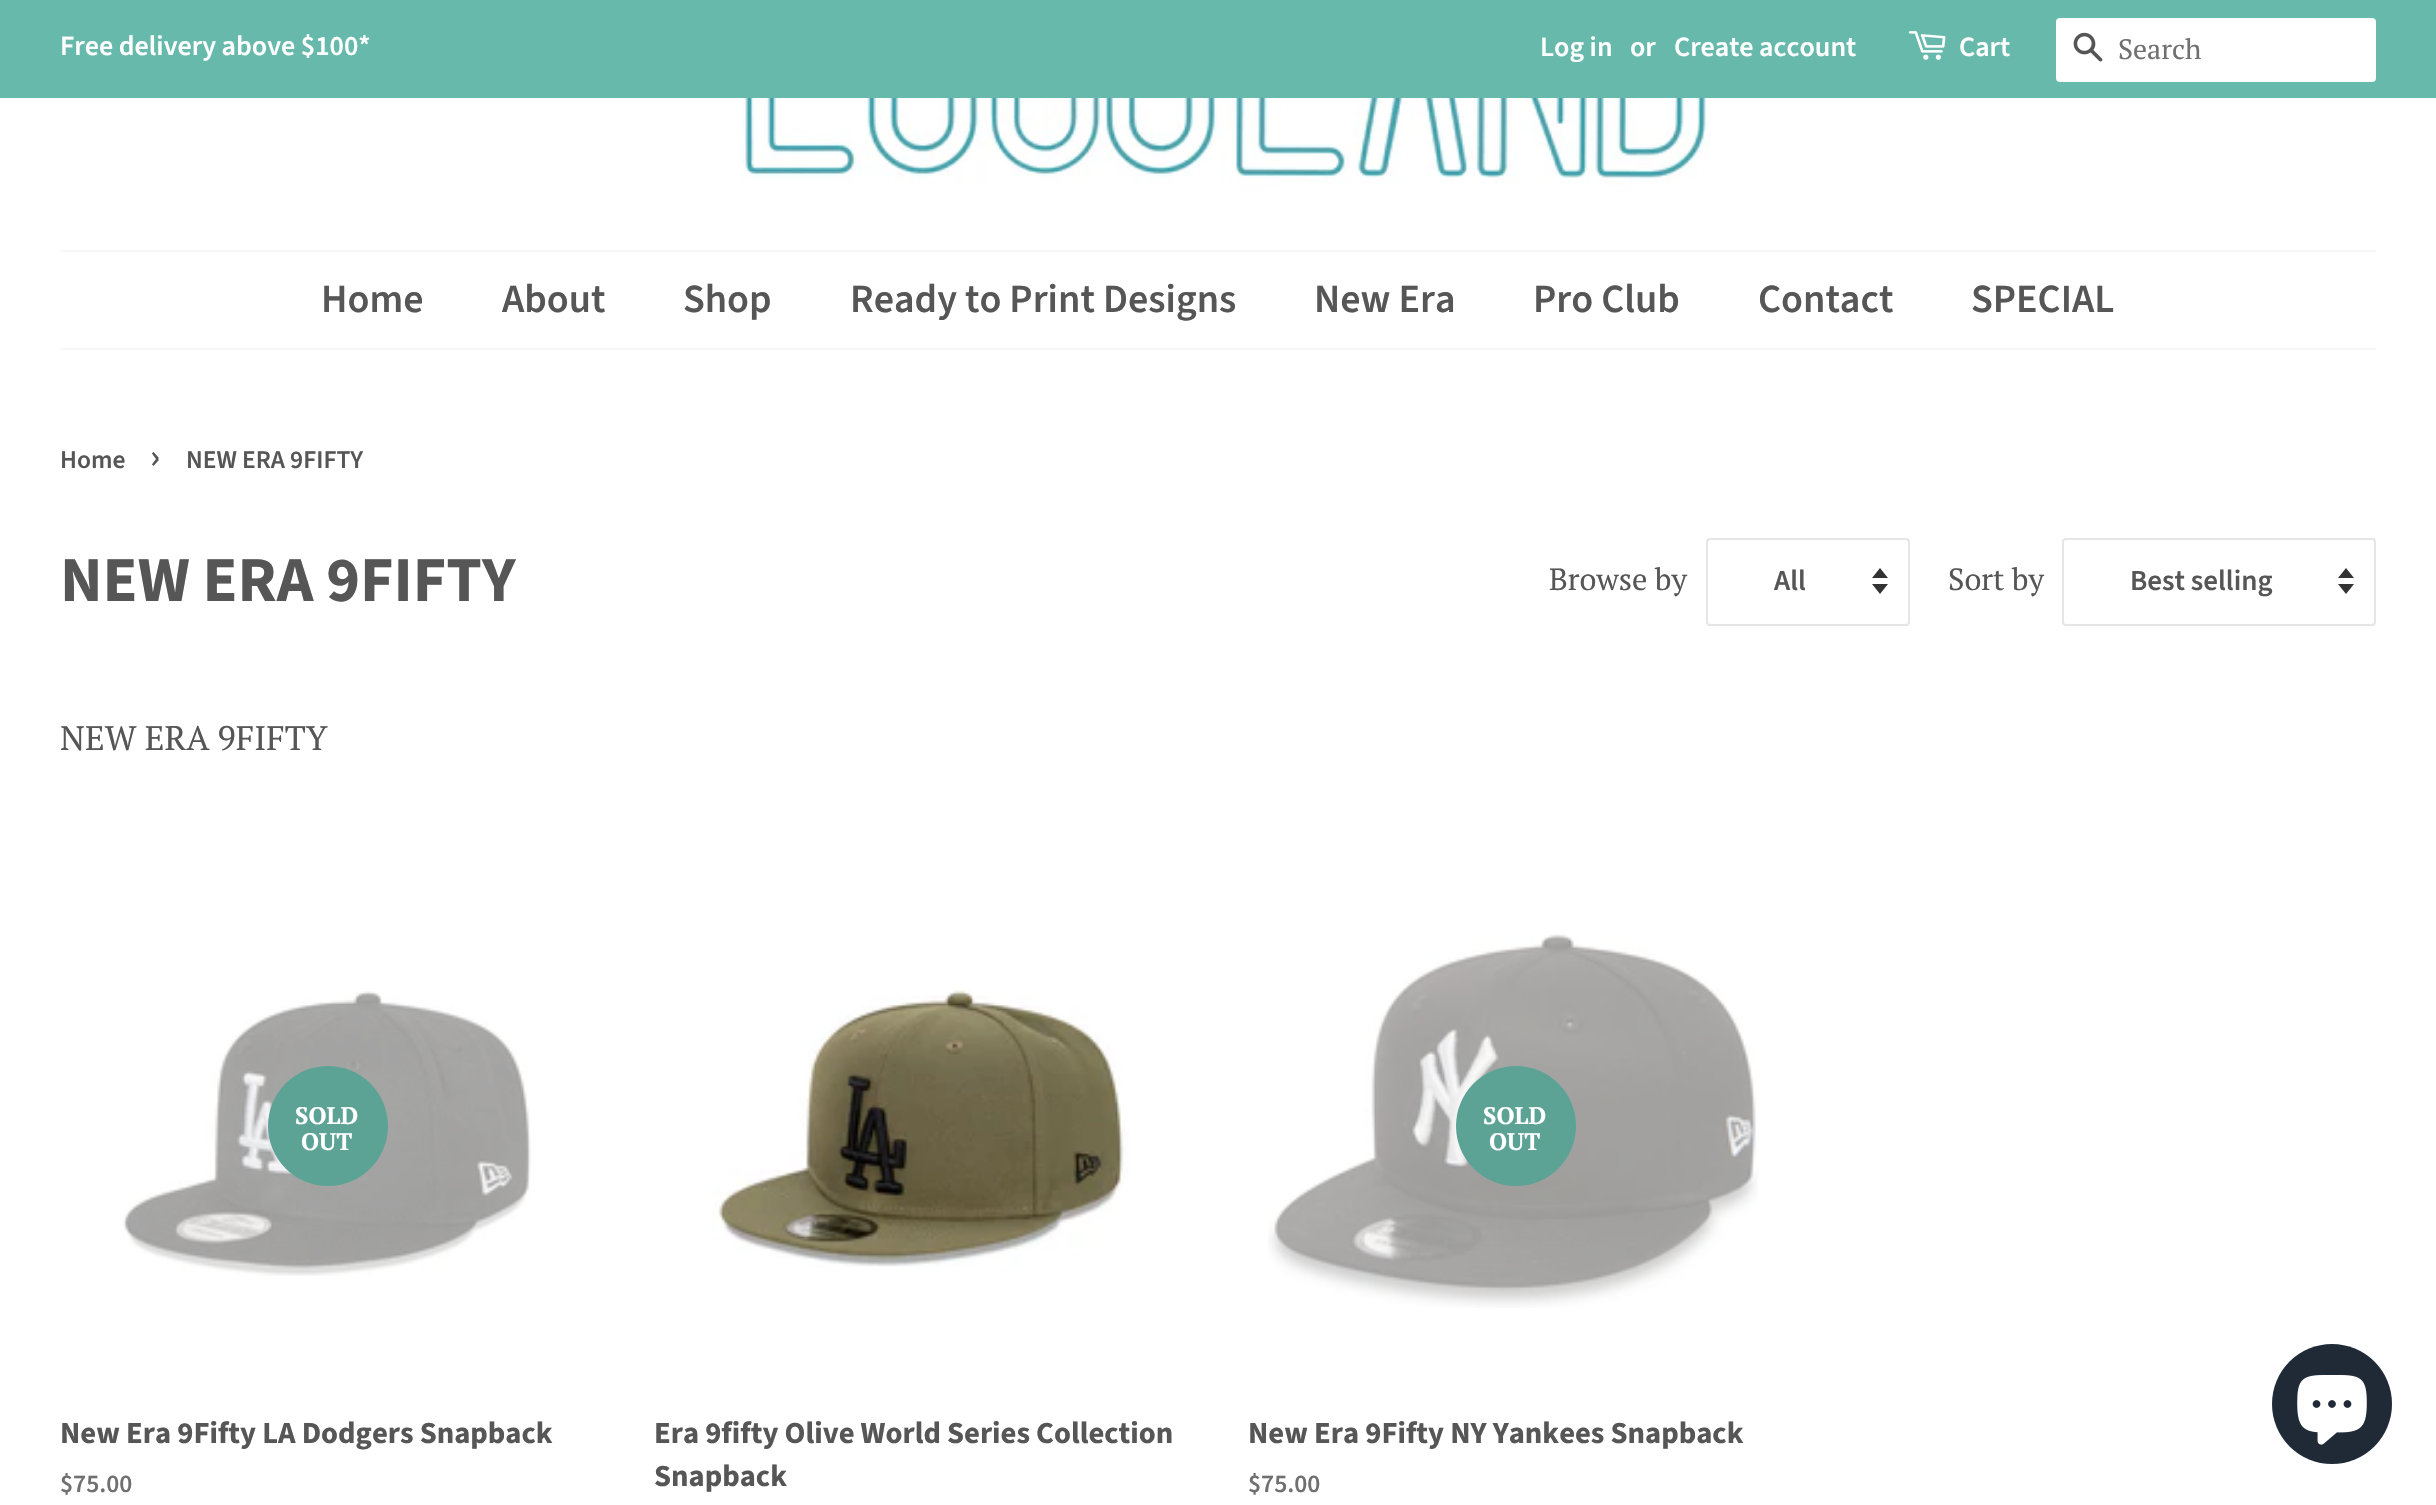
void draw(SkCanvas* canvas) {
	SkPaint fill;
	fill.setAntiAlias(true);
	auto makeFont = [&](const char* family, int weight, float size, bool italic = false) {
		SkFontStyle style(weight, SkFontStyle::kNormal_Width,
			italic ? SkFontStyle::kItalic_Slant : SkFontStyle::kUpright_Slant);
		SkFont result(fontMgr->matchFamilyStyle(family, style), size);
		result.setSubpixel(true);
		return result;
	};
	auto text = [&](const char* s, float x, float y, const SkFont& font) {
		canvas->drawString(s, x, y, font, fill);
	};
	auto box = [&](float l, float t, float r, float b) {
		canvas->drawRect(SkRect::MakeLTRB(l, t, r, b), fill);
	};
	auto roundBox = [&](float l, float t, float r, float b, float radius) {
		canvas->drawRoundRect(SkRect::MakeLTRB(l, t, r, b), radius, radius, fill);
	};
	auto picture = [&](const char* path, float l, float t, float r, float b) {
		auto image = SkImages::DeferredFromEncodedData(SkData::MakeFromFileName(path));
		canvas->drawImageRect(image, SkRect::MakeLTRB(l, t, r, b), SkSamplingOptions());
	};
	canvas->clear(0xFFFFFFFF);
	fill.setColor(0xFF67BAAB);
	box(0, 0, 2436, 98);
	picture("image0.png", 1908, 31, 1946, 60);
	fill.setColor(0xFFFFFFFF);
	roundBox(2056, 18, 2376, 82, 4);
	picture("image1.png", 2073, 32, 2103, 62);
	picture("image2.png", 742, 98, 1711, 186);
	fill.setColor(0xFFF7F7F7);
	box(60, 250, 2376, 252);
	box(60, 348, 2376, 350);
	fill.setColor(0xFF333333);
	canvas->drawPath(SkPathBuilder().moveTo(1872, 584).lineTo(1880, 594).lineTo(1888, 584).close().moveTo(1880, 568).lineTo(1872, 578).lineTo(1888, 578).close().detach(), fill);
	fill.setStyle(SkPaint::kStroke_Style);
	fill.setStrokeWidth(2);
	fill.setColor(0xFFE6E6E6);
	canvas->drawRoundRect(SkRect::MakeLTRB(1707, 539, 1909, 625), 3, 3, fill);
	fill.setStyle(SkPaint::kFill_Style);
	fill.setColor(0xFF333333);
	canvas->drawPath(SkPathBuilder().moveTo(2338, 584).lineTo(2346, 594).lineTo(2354, 584).close().moveTo(2346, 568).lineTo(2338, 578).lineTo(2354, 578).close().detach(), fill);
	fill.setStyle(SkPaint::kStroke_Style);
	fill.setColor(0xFFE6E6E6);
	canvas->drawRoundRect(SkRect::MakeLTRB(2063, 539, 2375, 625), 3, 3, fill);
	picture("image3.png", 123, 991, 531, 1276);
	fill.setStyle(SkPaint::kFill_Style);
	fill.setColor(0xFF5CA396);
	canvas->drawCircle(328, 1126, 60, fill);
	picture("image4.png", 712, 990, 1129, 1267);
	picture("image5.png", 1268, 934, 1758, 1308);
	canvas->drawCircle(1516, 1126, 60, fill);
	fill.setColor(0xFF202A36);
	canvas->drawCircle(2332, 1404, 60, fill);
	picture("image6.png", 2297, 1375, 2367, 1445);
	auto font1 = makeFont("Source Sans Pro", 600, 28);
	fill.setColor(0xFFFFFFFF);
	text("Free delivery above $100*", 60, 55, font1);
	text("Log in", 1540, 56, font1);
	text("or", 1630, 56, font1);
	text("Create account", 1674, 56, font1);
	text("Cart", 1959, 56, font1);
	auto font2 = makeFont("PT Serif", 400, 28);
	fill.setColor(0xFF707070);
	text("Search", 2118, 59, font2);
	auto font3 = makeFont("Source Sans Pro", 600, 40);
	fill.setColor(0xFF565656);
	text("Home", 321, 312, font3);
	text("About", 502, 312, font3);
	text("Shop", 683, 312, font3);
	text("Ready to Print Designs", 850, 312, font3);
	text("New Era", 1314, 312, font3);
	text("Pro Club", 1533, 312, font3);
	text("Contact", 1758, 312, font3);
	text("SPECIAL", 1971, 312, font3);
	auto font4 = makeFont("Source Sans Pro", 600, 25.5f);
	text("Home", 60, 468, font4);
	auto font5 = makeFont("Source Sans Pro", 600, 36);
	text("›", 150, 468, font5);
	text("NEW ERA 9FIFTY", 186, 468, font4);
	auto font6 = makeFont("Source Sans Pro", 700, 64);
	text("NEW ERA 9FIFTY", 60, 601, font6);
	auto font7 = makeFont("PT Serif", 400, 30.6f);
	text("Browse by", 1549, 590, font7);
	auto font8 = makeFont("Source Sans Pro", 600, 29);
	text("All", 1774, 590, font8);
	text("Sort by", 1948, 590, font7);
	text("Best selling", 2130, 590, font8);
	auto font9 = makeFont("PT Serif", 400, 34);
	text("NEW ERA 9FIFTY", 60, 750, font9);
	auto font10 = makeFont("PT Serif", 700, 24);
	fill.setColor(0xFFFFFFFF);
	text("SOLD", 295, 1124, font10);
	text("OUT", 301, 1150, font10);
	auto font11 = makeFont("Source Sans Pro", 700, 30.6f);
	fill.setColor(0xFF565656);
	text("New Era 9Fifty LA Dodgers Snapback", 60, 1443, font11);
	fill.setColor(0xFF707070);
	text("$75.00", 60, 1492, font4);
	fill.setColor(0xFF565656);
	text("Era 9fifty Olive World Series Collection", 654, 1443, font11);
	text("Snapback", 654, 1486, font11);
	fill.setColor(0xFFFFFFFF);
	text("SOLD", 1483, 1124, font10);
	text("OUT", 1489, 1150, font10);
	fill.setColor(0xFF565656);
	text("New Era 9Fifty NY Yankees Snapback", 1248, 1443, font11);
	fill.setColor(0xFF707070);
	text("$75.00", 1248, 1492, font4);
}
